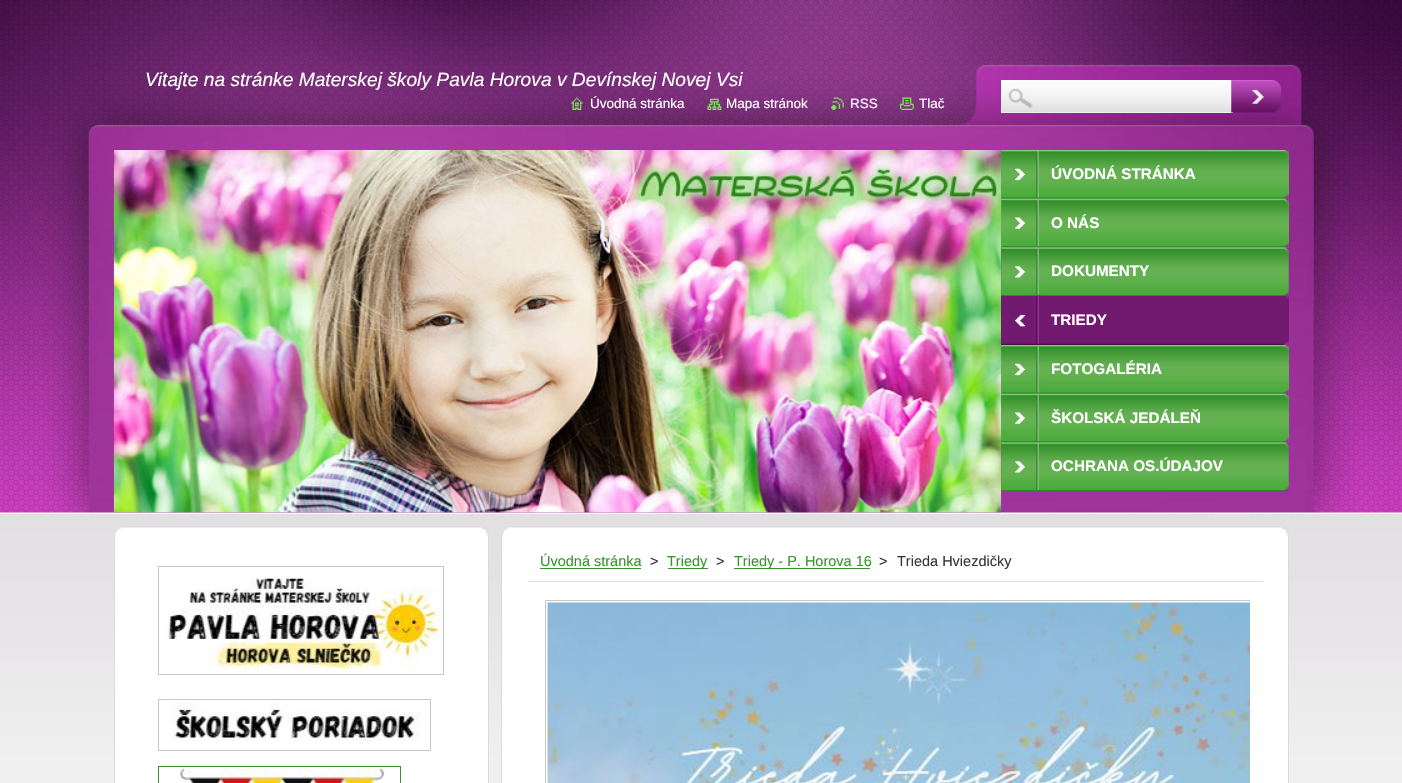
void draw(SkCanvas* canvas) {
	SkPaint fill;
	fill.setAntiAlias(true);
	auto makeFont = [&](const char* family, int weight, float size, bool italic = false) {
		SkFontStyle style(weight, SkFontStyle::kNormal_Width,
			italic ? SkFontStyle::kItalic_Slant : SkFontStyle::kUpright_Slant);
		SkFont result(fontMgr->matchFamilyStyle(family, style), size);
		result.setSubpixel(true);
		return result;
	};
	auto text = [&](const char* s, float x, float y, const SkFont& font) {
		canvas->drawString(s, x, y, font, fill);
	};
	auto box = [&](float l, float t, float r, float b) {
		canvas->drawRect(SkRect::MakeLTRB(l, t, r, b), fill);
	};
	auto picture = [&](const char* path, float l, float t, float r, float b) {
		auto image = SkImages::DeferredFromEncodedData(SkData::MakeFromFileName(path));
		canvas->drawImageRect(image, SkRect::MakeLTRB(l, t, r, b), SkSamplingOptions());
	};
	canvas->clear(0xFFFFFFFF);
	picture("image0.png", 0, 513, 1402, 783);
	picture("image1.png", 0, 0, 1402, 514);
	picture("image2.png", 113, 150, 1002, 513);
	picture("image3.png", 571, 97, 583, 110);
	picture("image4.png", 707, 98, 722, 110);
	picture("image5.png", 831, 97, 844, 110);
	picture("image6.png", 900, 97, 914, 110);
	fill.setColor(0xFFFFFFFF);
	box(1001, 80, 1233, 113);
	picture("image7.png", 1001, 82, 1233, 113);
	picture("image8.png", 1231, 80, 1282, 113);
	fill.setColor(0xFF65B153);
	box(1001, 150, 1289, 248);
	picture("image9.png", 1001, 150, 1289, 199);
	picture("image10.png", 1001, 198, 1289, 248);
	picture("image11.png", 1001, 247, 1289, 296);
	fill.setColor(0xFF711A6F);
	box(1001, 296, 1289, 345);
	picture("image12.png", 1001, 296, 1289, 345);
	fill.setColor(0xFF65B153);
	box(1001, 345, 1289, 443);
	picture("image9.png", 1001, 345, 1289, 394);
	picture("image10.png", 1001, 393, 1289, 443);
	picture("image13.png", 1001, 442, 1289, 492);
	picture("image14.png", 114, 526, 489, 536);
	fill.setColor(0xFFFFFFFF);
	box(115, 536, 488, 783);
	fill.setColor(0xFFDADADA);
	box(488, 536, 489, 783);
	box(114, 536, 115, 783);
	fill.setStyle(SkPaint::kStroke_Style);
	fill.setStrokeWidth(1);
	fill.setColor(0xFFC7C7C7);
	canvas->drawRect(SkRect::MakeLTRB(158.5f, 566.5f, 443.5f, 674.5f), fill);
	picture("image15.png", 164, 578, 441, 670);
	canvas->drawRect(SkRect::MakeLTRB(158.5f, 699.5f, 430.5f, 750.5f), fill);
	picture("image16.png", 170, 701, 420, 741);
	fill.setColor(0xFF39942E);
	canvas->drawRect(SkRect::MakeLTRB(158.5f, 766.5f, 400.5f, 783.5f), fill);
	picture("image17.png", 179, 768, 387, 783);
	picture("image18.png", 501, 526, 1289, 536);
	fill.setStyle(SkPaint::kFill_Style);
	fill.setColor(0xFFFFFFFF);
	box(502, 536, 1288, 783);
	fill.setColor(0xFFDADADA);
	box(1288, 536, 1289, 783);
	box(501, 536, 502, 783);
	fill.setColor(0xFFE1E1E1);
	box(528, 581, 1263, 582);
	fill.setColor(0xFF39942E);
	box(540, 568, 641, 569);
	box(668, 568, 708, 569);
	box(734, 568, 870, 569);
	canvas->save();
	canvas->clipRect(SkRect::MakeLTRB(540, 595, 1250, 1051));
	fill.setStyle(SkPaint::kStroke_Style);
	fill.setColor(0xFFC7C7C7);
	canvas->drawRect(SkRect::MakeLTRB(545.5f, 600.5f, 1299.5f, 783.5f), fill);
	canvas->restore();
	picture("image19.png", 547, 602, 1250, 783);
	auto font1 = makeFont("Liberation Sans", 400, 19.2f, true);
	fill.setStyle(SkPaint::kFill_Style);
	fill.setColor(0xFFFFFFFF);
	text("Vitajte na stránke Materskej školy Pavla Horova v Devínskej Novej Vsi", 145, 86, font1);
	auto font2 = makeFont("Liberation Sans", 400, 13.5f);
	text("Úvodná stránka", 590, 108, font2);
	text("Mapa stránok", 726, 108, font2);
	text("RSS", 850, 108, font2);
	text("Tlač", 919, 108, font2);
	auto font3 = makeFont("Liberation Sans", 700, 15.25f);
	text("ÚVODNÁ STRÁNKA", 1051, 179, font3);
	text("O NÁS", 1051, 228, font3);
	text("DOKUMENTY", 1051, 276, font3);
	text("TRIEDY", 1051, 325, font3);
	text("FOTOGALÉRIA", 1051, 374, font3);
	text("ŠKOLSKÁ JEDÁLEŇ", 1051, 423, font3);
	text("OCHRANA OS.ÚDAJOV", 1051, 471, font3);
	auto font4 = makeFont("Liberation Sans", 400, 14.5f);
	fill.setColor(0xFF39942E);
	text("Úvodná stránka", 540, 566, font4);
	fill.setColor(0xFF363636);
	text(">", 650, 566, font4);
	fill.setColor(0xFF39942E);
	text("Triedy", 667, 566, font4);
	fill.setColor(0xFF363636);
	text(">", 716, 566, font4);
	fill.setColor(0xFF39942E);
	text("Triedy - P. Horova 16", 734, 566, font4);
	fill.setColor(0xFF363636);
	text(">", 879, 566, font4);
	text("Trieda Hviezdičky", 897, 566, font4);
}
